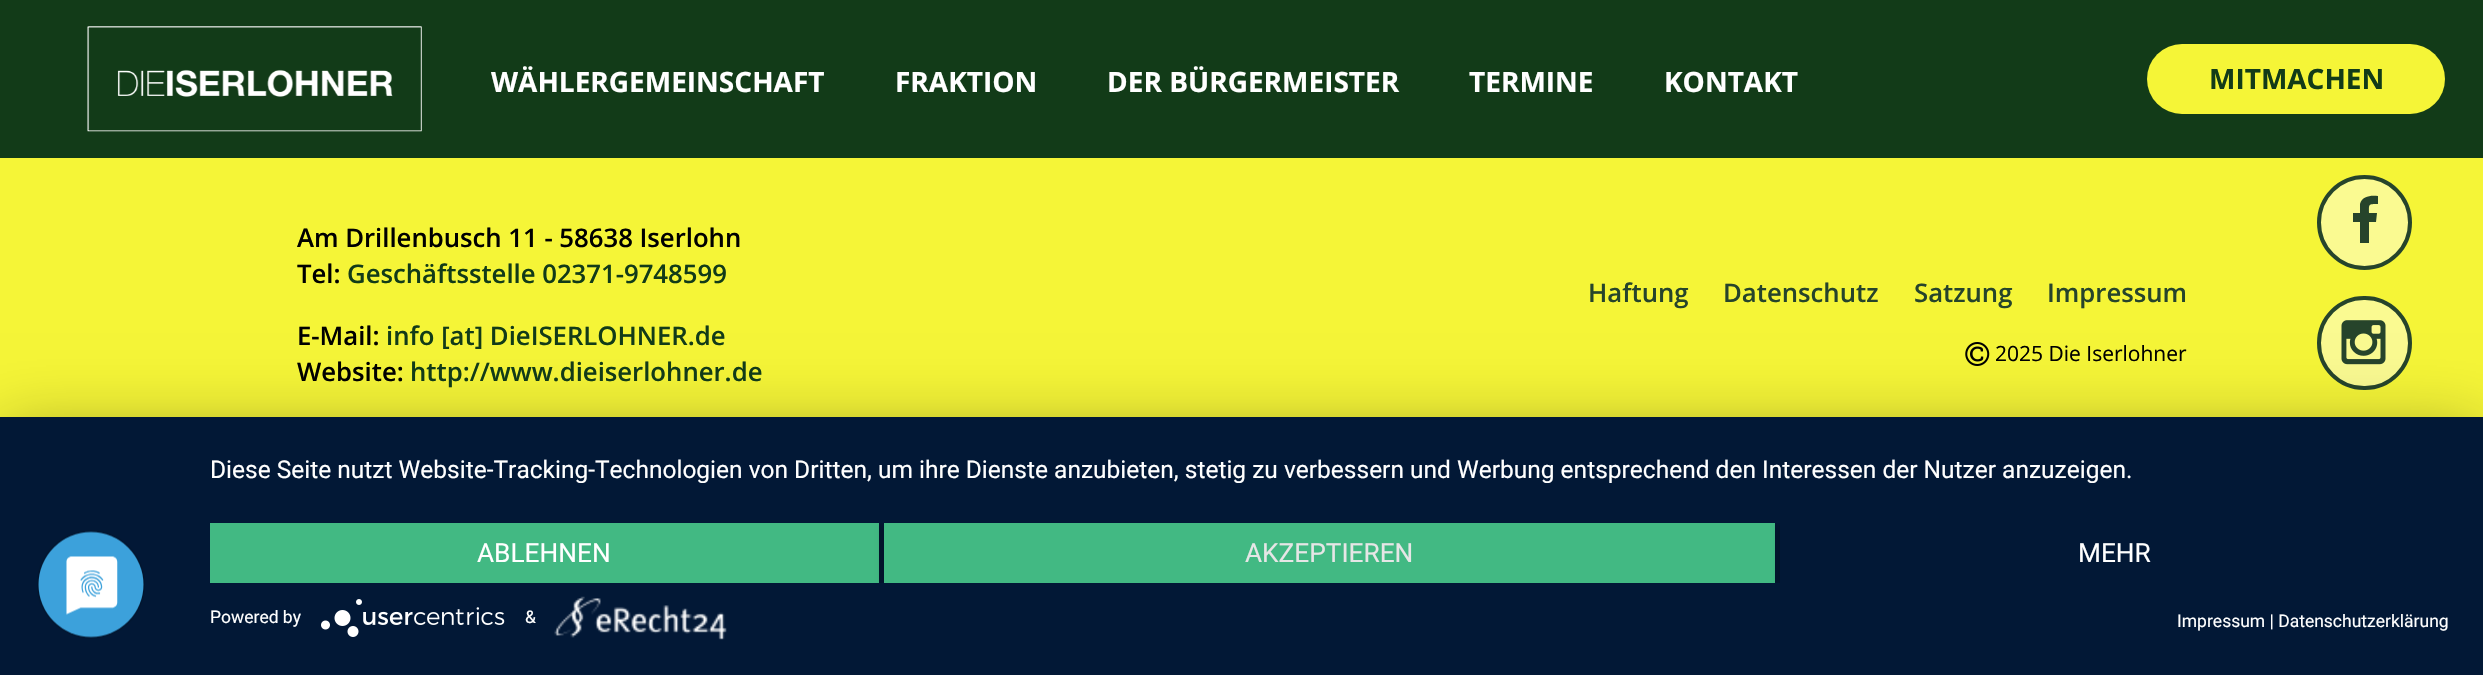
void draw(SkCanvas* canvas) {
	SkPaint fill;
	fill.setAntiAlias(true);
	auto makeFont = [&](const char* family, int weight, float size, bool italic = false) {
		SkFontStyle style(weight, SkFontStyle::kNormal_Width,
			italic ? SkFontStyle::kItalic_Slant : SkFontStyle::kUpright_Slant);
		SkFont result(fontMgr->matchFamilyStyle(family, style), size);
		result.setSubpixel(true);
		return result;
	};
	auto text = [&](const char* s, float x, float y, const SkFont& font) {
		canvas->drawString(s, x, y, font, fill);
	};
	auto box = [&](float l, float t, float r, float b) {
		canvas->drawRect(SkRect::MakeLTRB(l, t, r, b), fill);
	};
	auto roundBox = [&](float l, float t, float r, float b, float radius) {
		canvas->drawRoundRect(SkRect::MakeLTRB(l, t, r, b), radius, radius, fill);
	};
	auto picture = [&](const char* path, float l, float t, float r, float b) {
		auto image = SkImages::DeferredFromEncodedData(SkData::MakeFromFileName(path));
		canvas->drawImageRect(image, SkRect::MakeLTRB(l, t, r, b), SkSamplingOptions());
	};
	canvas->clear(0xFFF5F537);
	fill.setColor(0xFF123B18);
	box(0, 0, 2483, 158);
	picture("image0.png", 87, 26, 422, 132);
	fill.setColor(0xFFF5F537);
	roundBox(2147, 44, 2445, 114, 35);
	picture("image1.png", 1965, 342, 1990, 366);
	fill.setColor(0xFFFAFA91);
	canvas->drawCircle(2364.5f, 222.5f, 45.5f, fill);
	fill.setStyle(SkPaint::kStroke_Style);
	fill.setStrokeWidth(4);
	fill.setColor(0xFF26442B);
	canvas->drawCircle(2364.5f, 222.5f, 45.5f, fill);
	fill.setStyle(SkPaint::kFill_Style);
	canvas->drawPath(SkPathBuilder().moveTo(2378, 196).lineTo(2378, 204).cubicTo(2368, 204, 2369, 204, 2369, 213).lineTo(2377, 213).lineTo(2376, 222).lineTo(2369, 222).lineTo(2369, 243).lineTo(2360, 243).lineTo(2360, 222).lineTo(2353, 222).lineTo(2353, 213).lineTo(2360, 213).lineTo(2360, 204).cubicTo(2362, 196, 2371, 195, 2378, 196).close().detach(), fill);
	fill.setColor(0xFFFAFA91);
	canvas->drawRoundRect(SkRect::MakeLTRB(2319, 298, 2410, 388), 45, 45, fill);
	fill.setStyle(SkPaint::kStroke_Style);
	fill.setColor(0xFF26442B);
	canvas->drawRoundRect(SkRect::MakeLTRB(2319, 298, 2410, 388), 45, 45, fill);
	picture("image2.png", 2341, 320, 2386, 365);
	fill.setStyle(SkPaint::kFill_Style);
	fill.setColor(0x4D000000);
	fill.setMaskFilter(SkMaskFilter::MakeBlur(kNormal_SkBlurStyle, 31.5f));
	canvas->drawRect(SkRect::MakeLTRB(0, 427, 2483, 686), fill);
	fill.setMaskFilter(nullptr);
	fill.setColor(0xFF021836);
	box(0, 417, 2483, 675);
	picture("image3.png", 37, 530, 145, 639);
	picture("image5.png", 554, 596, 727, 640);
	canvas->save();
	canvas->clipRect(SkRect::MakeLTRB(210, 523, 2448, 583));
	fill.setColor(0x66000000);
	fill.setMaskFilter(SkMaskFilter::MakeBlur(kNormal_SkBlurStyle, 3.5f));
	canvas->drawRect(SkRect::MakeLTRB(210, 525, 879, 585), fill);
	fill.setMaskFilter(nullptr);
	canvas->restore();
	fill.setColor(0xFF42B983);
	box(210, 523, 879, 583);
	canvas->save();
	canvas->clipRect(SkRect::MakeLTRB(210, 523, 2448, 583));
	fill.setColor(0x66000000);
	fill.setMaskFilter(SkMaskFilter::MakeBlur(kNormal_SkBlurStyle, 3.5f));
	canvas->drawRect(SkRect::MakeLTRB(884, 525, 1775, 585), fill);
	fill.setMaskFilter(nullptr);
	canvas->restore();
	fill.setColor(0xFF42B983);
	box(884, 523, 1775, 583);
	canvas->save();
	canvas->clipRect(SkRect::MakeLTRB(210, 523, 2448, 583));
	fill.setColor(0x66000000);
	fill.setMaskFilter(SkMaskFilter::MakeBlur(kNormal_SkBlurStyle, 3.5f));
	canvas->drawRect(SkRect::MakeLTRB(1780, 525, 2448, 585), fill);
	fill.setMaskFilter(nullptr);
	canvas->restore();
	fill.setColor(0xFF021836);
	box(1780, 523, 2448, 583);
	picture("image4.png", 321, 599, 505, 637);
	auto font1 = makeFont("Open Sans", 700, 28);
	fill.setColor(0xFFFFFFFF);
	text("WÄHLERGEMEINSCHAFT", 491, 92, font1);
	text("FRAKTION", 895, 92, font1);
	text("DER BÜRGERMEISTER", 1107, 92, font1);
	text("TERMINE", 1469, 92, font1);
	text("KONTAKT", 1664, 92, font1);
	fill.setColor(0xFF123B18);
	text("MITMACHEN", 2209, 89, font1);
	auto font2 = makeFont("Open Sans", 600, 25.7f);
	fill.setColor(0xFF000000);
	text("Am Drillenbusch 11 - 58638 Iserlohn", 297, 247, font2);
	text("Tel:", 297, 283, font2);
	fill.setColor(0xFF123B18);
	text("Geschäftsstelle 02371-9748599", 347, 283, font2);
	fill.setColor(0xFF000000);
	text("E-Mail:", 297, 345, font2);
	fill.setColor(0xFF123B18);
	text("info [at] DieISERLOHNER.de", 386, 345, font2);
	fill.setColor(0xFF000000);
	text("Website:", 297, 381, font2);
	fill.setColor(0xFF123B18);
	text("http://www.dieiserlohner.de", 410, 381, font2);
	fill.setColor(0xFF26442B);
	text("Haftung", 1588, 302, font2);
	text("Datenschutz", 1723, 302, font2);
	text("Satzung", 1914, 302, font2);
	text("Impressum", 2047, 302, font2);
	auto font3 = makeFont("Open Sans", 400, 21);
	fill.setColor(0xFF000000);
	text("2025 Die Iserlohner", 1995, 361, font3);
	auto font4 = makeFont("Roboto", 400, 24.5f);
	fill.setColor(0xFFFFFFFF);
	text("Diese Seite nutzt Website-Tracking-Technologien von Dritten, um ihre Dienste anzubieten, stetig zu verbessern und Werbung entsprechend den Interessen der Nutzer anzuzeigen.", 210, 478, font4);
	auto font5 = makeFont("Roboto", 400, 26.25f);
	text("ABLEHNEN", 477, 562, font5);
	fill.setColor(0xFFE6E6E6);
	text("AKZEPTIEREN", 1245, 562, font5);
	fill.setColor(0xFFFFFFFF);
	text("MEHR", 2078, 562, font5);
	auto font6 = makeFont("Roboto", 400, 17.5f);
	text("Powered by", 210, 623, font6);
	text("&", 525, 623, font6);
	text("Impressum | Datenschutzerklärung", 2177, 627, font6);
}
